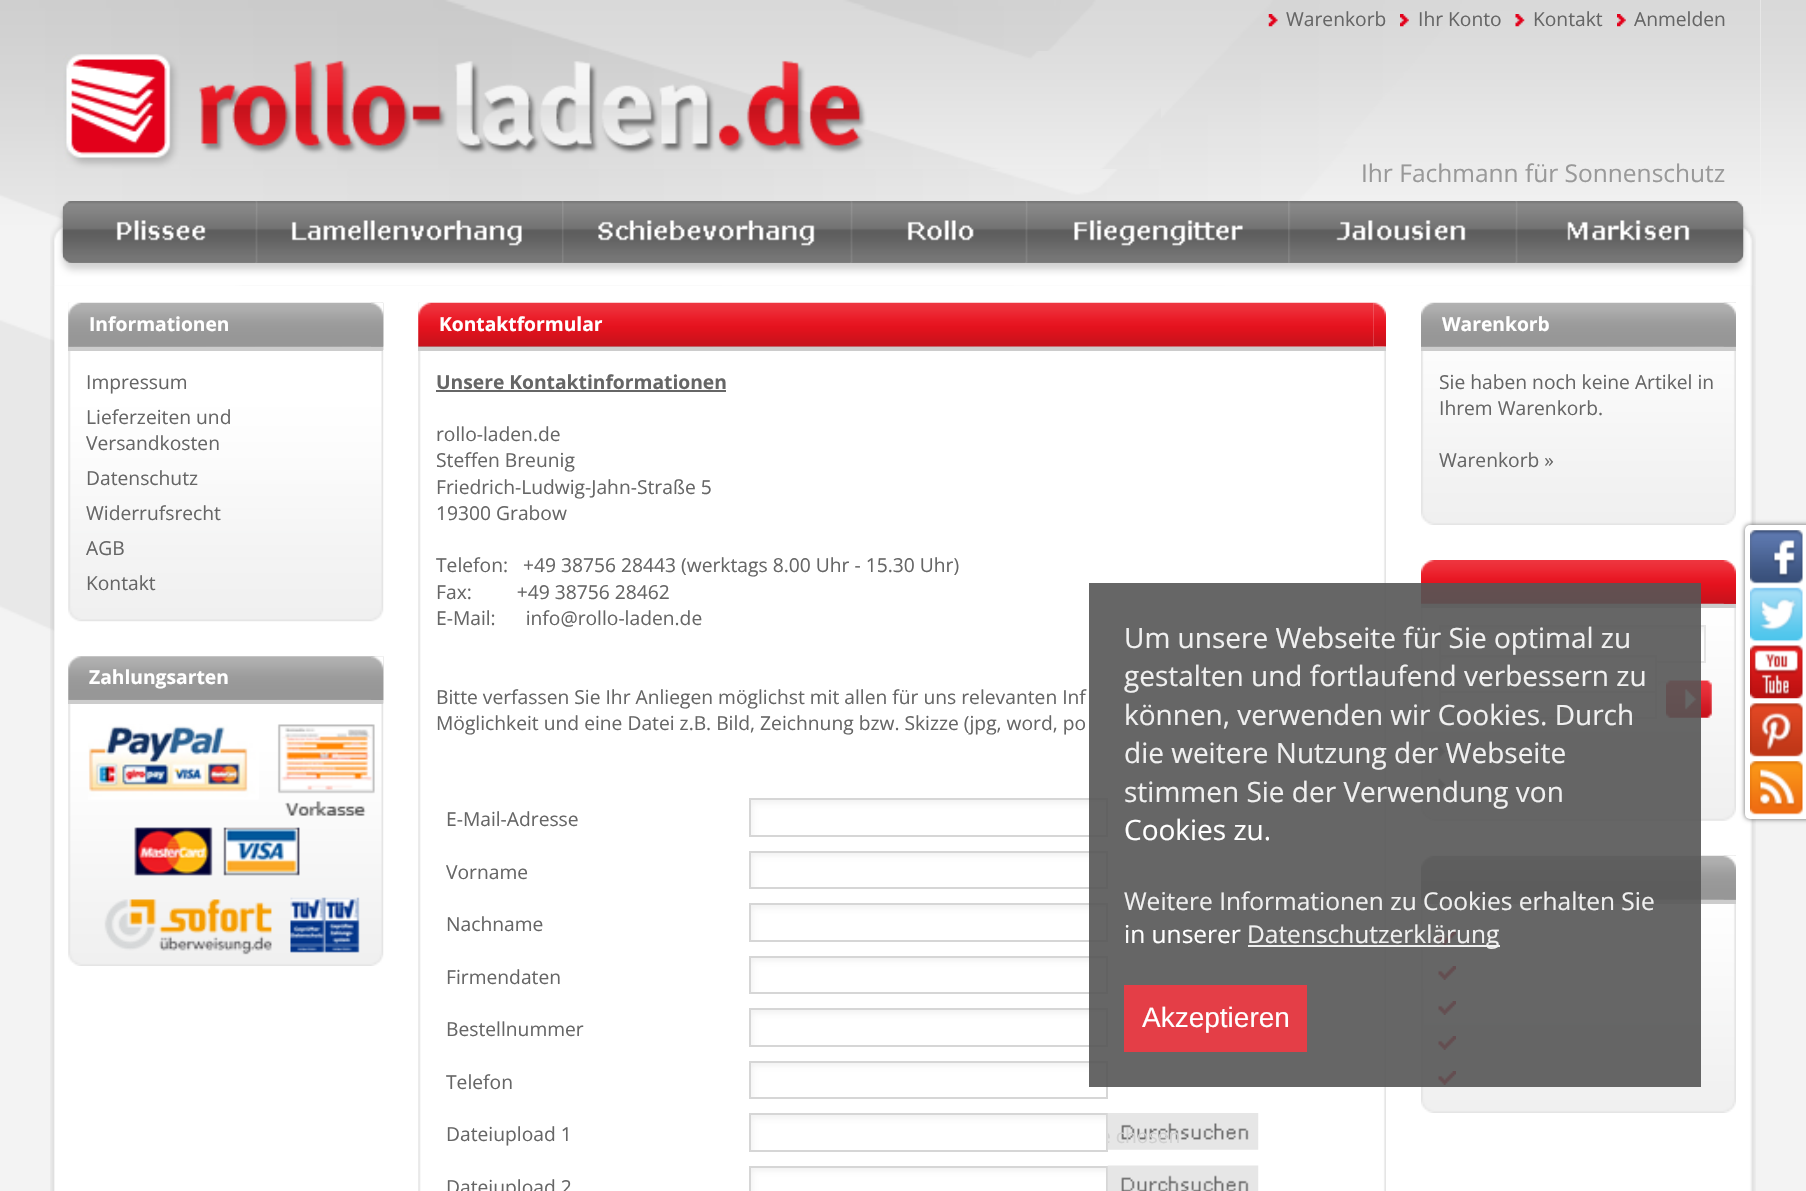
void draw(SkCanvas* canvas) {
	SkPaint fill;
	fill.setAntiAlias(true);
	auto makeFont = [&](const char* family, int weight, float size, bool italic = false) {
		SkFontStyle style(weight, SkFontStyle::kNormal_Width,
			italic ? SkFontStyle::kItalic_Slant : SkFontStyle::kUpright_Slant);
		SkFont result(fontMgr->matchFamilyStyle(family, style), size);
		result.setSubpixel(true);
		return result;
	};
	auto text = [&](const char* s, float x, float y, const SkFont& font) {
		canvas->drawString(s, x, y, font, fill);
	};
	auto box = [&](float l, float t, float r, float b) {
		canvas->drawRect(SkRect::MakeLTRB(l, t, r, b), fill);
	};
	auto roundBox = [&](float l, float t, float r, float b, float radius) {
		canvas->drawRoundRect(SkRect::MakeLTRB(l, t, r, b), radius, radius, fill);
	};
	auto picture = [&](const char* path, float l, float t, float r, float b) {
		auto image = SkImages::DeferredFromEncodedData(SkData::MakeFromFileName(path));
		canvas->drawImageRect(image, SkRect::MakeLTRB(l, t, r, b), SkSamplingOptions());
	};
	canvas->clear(0xFFF3F3F3);
	picture("image0.png", 0, 0, 1806, 1070);
	fill.setColor(0xFFF3F3F3);
	box(46, 0, 1761, 1070);
	picture("image1.png", 46, 0, 1761, 1070);
	picture("image2.png", 50, 201, 1756, 286);
	picture("image3.png", 1268, 14, 1278, 27);
	picture("image4.png", 1400, 14, 1409, 27);
	picture("image5.png", 1515, 14, 1525, 27);
	picture("image6.png", 1617, 14, 1626, 27);
	picture("image7.png", 63, 54, 79, 168);
	picture("image8.png", 79, 51, 1161, 169);
	picture("image9.png", 63, 201, 256, 263);
	picture("image10.png", 63, 201, 256, 263);
	picture("image11.png", 255, 201, 562, 263);
	picture("image12.png", 255, 201, 562, 263);
	picture("image13.png", 562, 201, 851, 263);
	picture("image14.png", 561, 201, 851, 263);
	picture("image15.png", 850, 201, 1026, 263);
	picture("image16.png", 850, 201, 1026, 263);
	picture("image17.png", 1025, 201, 1288, 263);
	picture("image18.png", 1025, 201, 1288, 263);
	picture("image19.png", 1288, 201, 1516, 263);
	picture("image20.png", 1288, 201, 1516, 263);
	picture("image21.png", 1515, 201, 1743, 263);
	picture("image22.png", 1515, 201, 1743, 263);
	picture("image23.png", 50, 285, 1756, 1191);
	picture("image24.png", 68, 302, 384, 622);
	picture("image25.png", 68, 302, 384, 350);
	fill.setColor(0xFFCCCCCC);
	box(68, 347, 383, 351);
	picture("image26.png", 371, 302, 384, 347);
	picture("image27.png", 68, 656, 384, 966);
	fill.setColor(0xFFFFFFFF);
	box(68, 656, 383, 700);
	picture("image28.png", 68, 656, 384, 704);
	fill.setColor(0xFFCCCCCC);
	box(68, 700, 383, 704);
	picture("image29.png", 371, 656, 384, 700);
	picture("image30.png", 88, 724, 375, 955);
	picture("image31.png", 418, 302, 1386, 1191);
	picture("image32.png", 418, 302, 1374, 347);
	box(418, 347, 1386, 351);
	picture("image33.png", 1373, 302, 1386, 347);
	fill.setColor(0xFF666666);
	box(436, 390, 726, 392);
	picture("image34.png", 751, 800, 1106, 835);
	fill.setStyle(SkPaint::kStroke_Style);
	fill.setStrokeWidth(2);
	fill.setColor(0xFFD6D6D6);
	canvas->drawRect(SkRect::MakeLTRB(750, 799, 1107, 836), fill);
	picture("image35.png", 751, 853, 1106, 887);
	canvas->drawRect(SkRect::MakeLTRB(750, 852, 1107, 888), fill);
	picture("image34.png", 751, 905, 1106, 940);
	canvas->drawRect(SkRect::MakeLTRB(750, 904, 1107, 941), fill);
	picture("image35.png", 751, 958, 1106, 992);
	canvas->drawRect(SkRect::MakeLTRB(750, 957, 1107, 993), fill);
	picture("image34.png", 751, 1010, 1106, 1045);
	canvas->drawRect(SkRect::MakeLTRB(750, 1009, 1107, 1046), fill);
	picture("image35.png", 751, 1063, 1106, 1097);
	canvas->drawRect(SkRect::MakeLTRB(750, 1062, 1107, 1098), fill);
	picture("image34.png", 751, 1115, 1106, 1150);
	canvas->drawRect(SkRect::MakeLTRB(750, 1114, 1107, 1151), fill);
	picture("image36.png", 1107, 1113, 1259, 1150);
	picture("image37.png", 751, 1168, 1106, 1191);
	canvas->drawRect(SkRect::MakeLTRB(750, 1167, 1107, 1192), fill);
	picture("image38.png", 1107, 1165, 1259, 1191);
	picture("image39.png", 1421, 302, 1736, 525);
	picture("image40.png", 1421, 302, 1736, 347);
	fill.setStyle(SkPaint::kFill_Style);
	fill.setColor(0xFFCCCCCC);
	box(1421, 347, 1736, 351);
	picture("image41.png", 1723, 302, 1736, 347);
	picture("image42.png", 1421, 608, 1736, 821);
	picture("image43.png", 1421, 560, 1736, 604);
	box(1421, 604, 1736, 608);
	picture("image44.png", 1723, 560, 1736, 604);
	picture("image45.png", 1441, 627, 1704, 661);
	fill.setStyle(SkPaint::kStroke_Style);
	fill.setColor(0xFFE6E6E6);
	canvas->drawRect(SkRect::MakeLTRB(1440, 626, 1705, 662), fill);
	picture("image47.png", 1441, 693, 1655, 717);
	canvas->drawRect(SkRect::MakeLTRB(1440, 682, 1656, 718), fill);
	fill.setStyle(SkPaint::kFill_Style);
	fill.setColor(0xFFFFFFFF);
	box(1657, 681, 1712, 718);
	picture("image48.png", 1657, 680, 1712, 718);
	picture("image46.png", 1441, 656, 1658, 693);
	fill.setStyle(SkPaint::kStroke_Style);
	fill.setColor(0xFFE6E6E6);
	canvas->drawRect(SkRect::MakeLTRB(1440, 656, 1656, 692), fill);
	picture("image49.png", 1667, 680, 1712, 718);
	picture("image50.png", 1438, 745, 1446, 759);
	picture("image51.png", 1438, 778, 1446, 792);
	picture("image52.png", 1421, 855, 1736, 1113);
	picture("image40.png", 1421, 855, 1736, 900);
	fill.setStyle(SkPaint::kFill_Style);
	fill.setColor(0xFFCCCCCC);
	box(1421, 900, 1736, 904);
	picture("image41.png", 1723, 855, 1736, 900);
	picture("image53.png", 1438, 931, 1456, 945);
	picture("image54.png", 1438, 966, 1456, 980);
	picture("image55.png", 1438, 1001, 1456, 1015);
	picture("image56.png", 1438, 1036, 1456, 1050);
	picture("image57.png", 1438, 1071, 1456, 1085);
	fill.setColor(0xFF666666);
	fill.setMaskFilter(SkMaskFilter::MakeBlur(kNormal_SkBlurStyle, 2.5f));
	canvas->drawRoundRect(SkRect::MakeLTRB(1745, 525, 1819, 819), 5, 5, fill);
	fill.setMaskFilter(nullptr);
	fill.setColor(0xFFFFFFFF);
	roundBox(1745, 525, 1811, 819, 5);
	picture("image58.png", 1750, 530, 1803, 584);
	picture("image59.png", 1750, 587, 1803, 642);
	picture("image60.png", 1750, 645, 1803, 699);
	picture("image61.png", 1750, 703, 1803, 757);
	picture("image62.png", 1750, 761, 1803, 815);
	fill.setColor(0xE6555555);
	box(1089, 583, 1701, 1087);
	fill.setColor(0xE6FFFFFF);
	box(1248, 945, 1500, 947);
	fill.setColor(0xFFE43E47);
	box(1124, 985, 1307, 1052);
	auto font1 = makeFont("Open Sans", 400, 19.25f);
	fill.setColor(0xFF666666);
	text("Warenkorb", 1286, 26, font1);
	text("Ihr Konto", 1418, 26, font1);
	text("Kontakt", 1533, 26, font1);
	text("Anmelden", 1634, 26, font1);
	auto font2 = makeFont("Open Sans", 400, 24.5f);
	fill.setColor(0xFF999999);
	text("Ihr Fachmann für Sonnenschutz", 1361, 182, font2);
	auto font3 = makeFont("Open Sans", 700, 19.25f);
	fill.setColor(0xFFFFFFFF);
	text("Informationen", 89, 331, font3);
	fill.setColor(0xFF666666);
	text("Impressum", 86, 389, font1);
	text("Lieferzeiten und", 86, 424, font1);
	text("Versandkosten", 86, 450, font1);
	text("Datenschutz", 86, 485, font1);
	text("Widerrufsrecht", 86, 520, font1);
	text("AGB", 86, 555, font1);
	text("Kontakt", 86, 590, font1);
	fill.setColor(0xFFFFFFFF);
	text("Zahlungsarten", 89, 684, font3);
	text("Kontaktformular", 439, 331, font3);
	fill.setColor(0xFF666666);
	text("Unsere Kontaktinformationen", 436, 389, font3);
	text("rollo-laden.de", 436, 441, font1);
	text("Steffen Breunig", 436, 467, font1);
	text("Friedrich-Ludwig-Jahn-Straße 5", 436, 494, font1);
	text("19300 Grabow", 436, 520, font1);
	text("Telefon:   +49 38756 28443 (werktags 8.00 Uhr - 15.30 Uhr)", 436, 572, font1);
	text("Fax:         +49 38756 28462", 436, 599, font1);
	text("E-Mail:      info@rollo-laden.de", 436, 625, font1);
	text("Bitte verfassen Sie Ihr Anliegen möglichst mit allen für uns relevanten Inf", 436, 704, font1);
	text("Möglichkeit und eine Datei z.B. Bild, Zeichnung bzw. Skizze (jpg, word, po", 436, 730, font1);
	text("E-Mail-Adresse", 446, 826, font1);
	text("Vorname", 446, 879, font1);
	text("Nachname", 446, 931, font1);
	text("Firmendaten", 446, 984, font1);
	text("Bestellnummer", 446, 1036, font1);
	text("Telefon", 446, 1089, font1);
	text("Dateiupload 1", 446, 1141, font1);
	canvas->save();
	canvas->clipRect(SkRect::MakeLTRB(1108, 1113, 1258, 1150));
	fill.setColor(0xFFD0D0D0);
	text("e chosen", 1100, 1143, font1);
	canvas->restore();
	fill.setColor(0xFF666666);
	text("Dateiupload 2", 446, 1194, font1);
	fill.setColor(0xFFFFFFFF);
	text("Warenkorb", 1442, 331, font3);
	fill.setColor(0xFF666666);
	text("Sie haben noch keine Artikel in", 1439, 389, font1);
	text("Ihrem Warenkorb.", 1439, 415, font1);
	text("Warenkorb »", 1439, 467, font1);
	auto font4 = makeFont("Open Sans", 400, 28);
	fill.setColor(0xFFF0F0F0);
	text("Um unsere Webseite für Sie optimal zu", 1124, 648, font4);
	text("gestalten und fortlaufend verbessern zu", 1124, 686, font4);
	text("können, verwenden wir Cookies. Durch", 1124, 725, font4);
	text("die weitere Nutzung der Webseite", 1124, 763, font4);
	text("stimmen Sie der Verwendung von", 1124, 802, font4);
	fill.setColor(0xFFFFFFFF);
	text("Cookies zu.", 1124, 840, font4);
	fill.setColor(0xFFF0F0F0);
	text("Weitere Informationen zu Cookies erhalten Sie", 1124, 910, font2);
	fill.setColor(0xFFFFFFFF);
	text("in unserer", 1124, 943, font2);
	fill.setColor(0xFFF0F0F0);
	text("Datenschutzerklärung", 1247, 943, font2);
	auto font5 = makeFont("Liberation Sans", 400, 28);
	fill.setColor(0xFFFFFFFF);
	text("Akzeptieren", 1142, 1027, font5);
}
